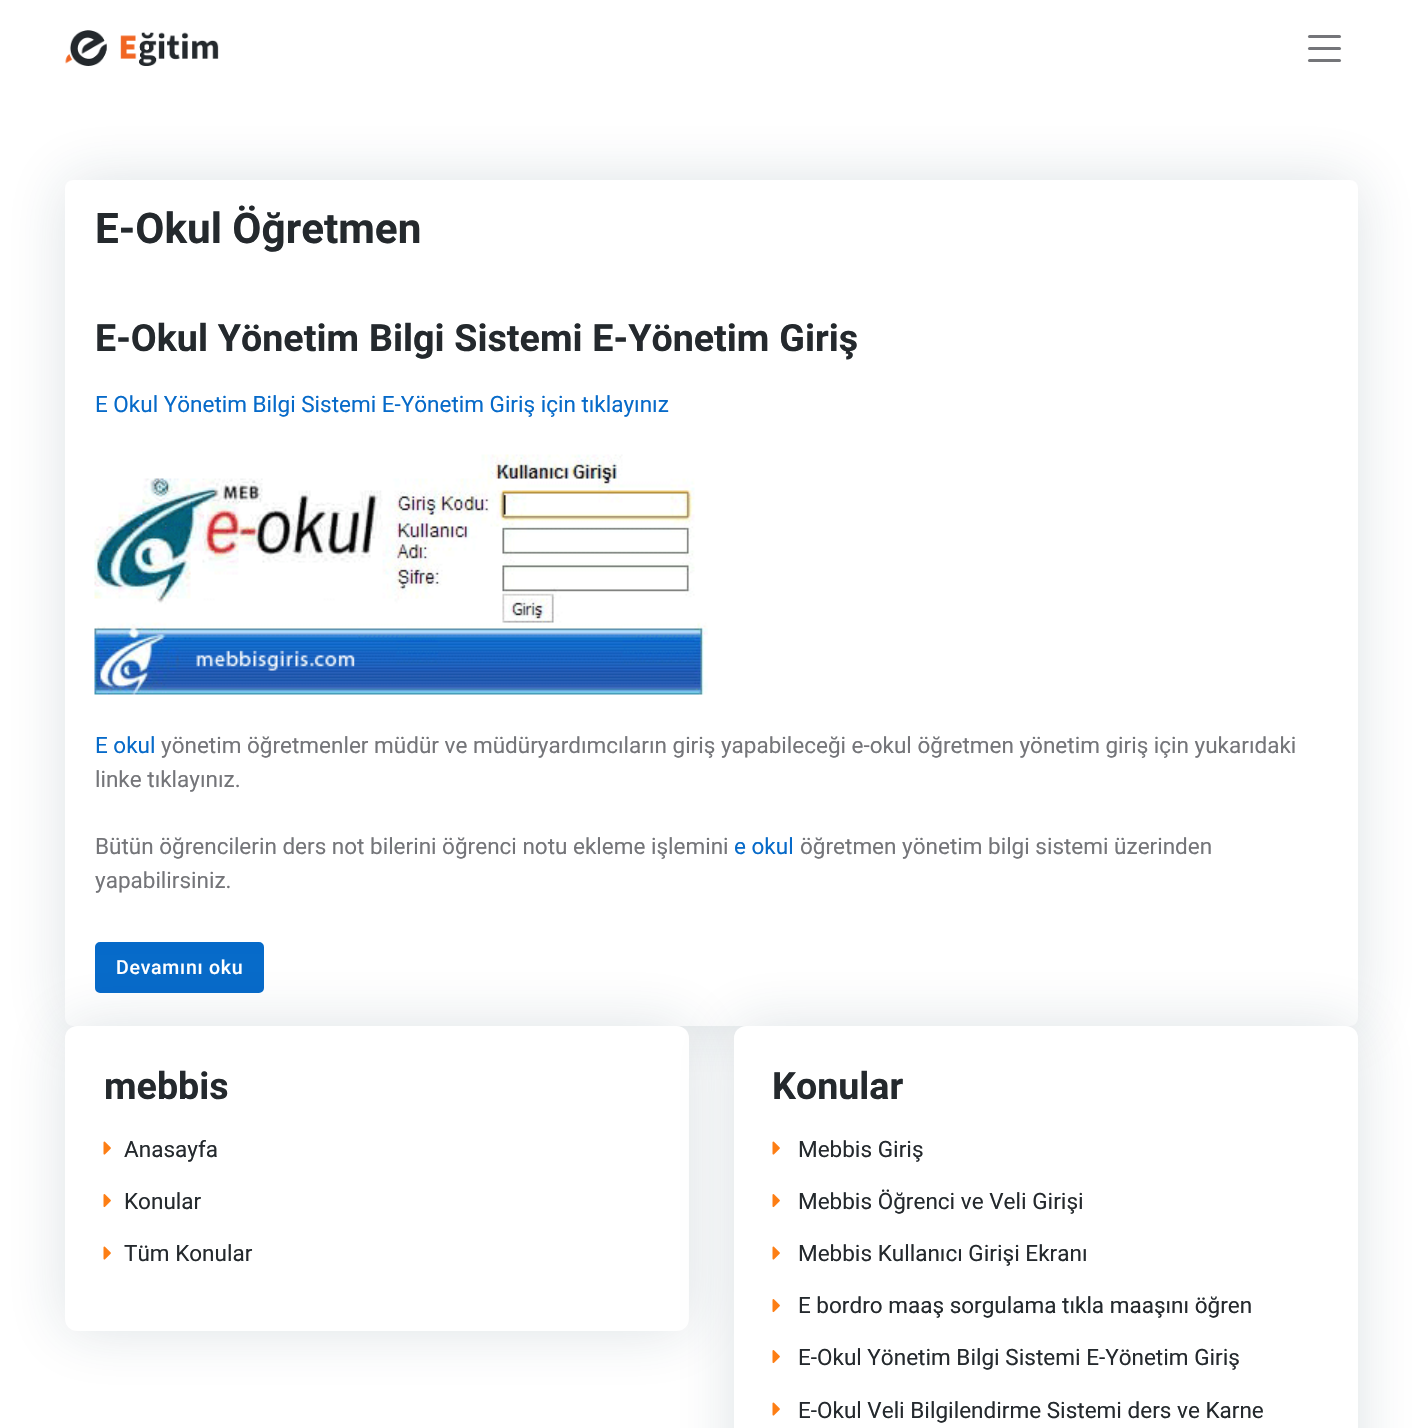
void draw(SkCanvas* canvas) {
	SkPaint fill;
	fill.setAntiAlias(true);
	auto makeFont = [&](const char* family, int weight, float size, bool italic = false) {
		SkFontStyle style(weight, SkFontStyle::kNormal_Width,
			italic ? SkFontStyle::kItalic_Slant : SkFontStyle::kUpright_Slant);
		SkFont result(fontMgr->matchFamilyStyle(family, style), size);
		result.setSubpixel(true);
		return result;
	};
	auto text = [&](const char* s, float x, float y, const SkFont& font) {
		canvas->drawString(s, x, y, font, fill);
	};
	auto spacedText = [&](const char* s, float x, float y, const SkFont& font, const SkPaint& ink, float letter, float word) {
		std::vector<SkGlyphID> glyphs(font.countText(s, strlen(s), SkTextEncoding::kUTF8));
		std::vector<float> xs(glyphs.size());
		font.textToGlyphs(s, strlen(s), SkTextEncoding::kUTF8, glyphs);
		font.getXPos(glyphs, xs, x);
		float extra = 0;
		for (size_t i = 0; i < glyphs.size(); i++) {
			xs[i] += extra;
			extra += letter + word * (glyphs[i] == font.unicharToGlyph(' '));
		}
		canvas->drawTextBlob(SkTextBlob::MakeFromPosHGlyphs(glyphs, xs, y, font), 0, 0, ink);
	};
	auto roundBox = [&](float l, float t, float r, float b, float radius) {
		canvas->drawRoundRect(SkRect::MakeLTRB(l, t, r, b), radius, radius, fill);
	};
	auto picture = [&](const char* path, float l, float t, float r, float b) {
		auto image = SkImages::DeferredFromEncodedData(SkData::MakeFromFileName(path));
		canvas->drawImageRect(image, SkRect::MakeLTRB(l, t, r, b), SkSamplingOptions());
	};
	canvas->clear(0xFFFFFFFF);
	picture("image0.png", 65, 30, 219, 66);
	fill.setColor(0xFF747579);
	roundBox(1308, 35, 1341, 38, 1.5f);
	roundBox(1308, 47, 1341, 50, 1.5f);
	roundBox(1308, 59, 1341, 62, 1.5f);
	fill.setColor(0x261D3A53);
	fill.setMaskFilter(SkMaskFilter::MakeBlur(kNormal_SkBlurStyle, 30));
	canvas->drawRoundRect(SkRect::MakeLTRB(65, 180, 1358, 1026), 8, 8, fill);
	fill.setMaskFilter(nullptr);
	fill.setColor(0xFFFFFFFF);
	roundBox(65, 180, 1358, 1026, 8);
	picture("image1.png", 94, 454, 708, 695);
	fill.setColor(0xFF066AC9);
	canvas->drawRoundRect(SkRect::MakeLTRB(96, 943, 263, 992), 4, 4, fill);
	fill.setStyle(SkPaint::kStroke_Style);
	fill.setStrokeWidth(2);
	canvas->drawRoundRect(SkRect::MakeLTRB(96, 943, 263, 992), 4, 4, fill);
	fill.setStyle(SkPaint::kFill_Style);
	fill.setColor(0x261D3A53);
	fill.setMaskFilter(SkMaskFilter::MakeBlur(kNormal_SkBlurStyle, 30));
	canvas->drawRoundRect(SkRect::MakeLTRB(65, 1026, 689, 1331), 12, 12, fill);
	fill.setMaskFilter(nullptr);
	fill.setColor(0xFFFFFFFF);
	roundBox(65, 1026, 689, 1331, 12);
	picture("image2.png", 103, 1141, 111, 1155);
	picture("image3.png", 103, 1194, 111, 1208);
	picture("image2.png", 103, 1246, 111, 1260);
	fill.setColor(0x261D3A53);
	fill.setMaskFilter(SkMaskFilter::MakeBlur(kNormal_SkBlurStyle, 30));
	canvas->drawRoundRect(SkRect::MakeLTRB(734, 1026, 1358, 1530), 12, 12, fill);
	fill.setMaskFilter(nullptr);
	fill.setColor(0xFFFFFFFF);
	roundBox(734, 1026, 1358, 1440, 12);
	picture("image2.png", 772, 1141, 780, 1155);
	picture("image3.png", 772, 1194, 780, 1208);
	picture("image2.png", 772, 1246, 780, 1260);
	picture("image3.png", 772, 1299, 780, 1313);
	picture("image3.png", 772, 1350, 780, 1364);
	picture("image2.png", 772, 1402, 780, 1416);
	auto font1 = makeFont("Heebo", 700, 42.25f);
	fill.setColor(0xFF24292D);
	text("E-Okul Öğretmen", 95, 243, font1);
	auto font2 = makeFont("Heebo", 700, 37.6f);
	spacedText("E-Okul Yönetim Bilgi Sistemi E-Yönetim Giriş", 95, 351, font2, fill, 0, 0.5f);
	auto font3 = makeFont("Roboto", 400, 22.5f);
	fill.setColor(0xFF066AC9);
	text("E Okul Yönetim Bilgi Sistemi E-Yönetim Giriş için tıklayınız", 95, 412, font3);
	text("E okul", 95, 753, font3);
	fill.setColor(0xFF747579);
	text("yönetim öğretmenler müdür ve müdüryardımcıların giriş yapabileceği e-okul öğretmen yönetim giriş için yukarıdaki", 161, 753, font3);
	text("linke tıklayınız.", 95, 787, font3);
	text("Bütün öğrencilerin ders not bilerini öğrenci notu ekleme işlemini", 95, 854, font3);
	fill.setColor(0xFF066AC9);
	text("e okul", 734, 854, font3);
	fill.setColor(0xFF747579);
	text("öğretmen yönetim bilgi sistemi üzerinden", 800, 854, font3);
	text("yapabilirsiniz.", 95, 888, font3);
	auto font4 = makeFont("Roboto", 500, 19.5f);
	fill.setColor(0xFFFFFFFF);
	spacedText("Devamını oku", 116, 974, font4, fill, 0.75f, 0);
	fill.setColor(0xFF24292D);
	text("mebbis", 104, 1099, font2);
	auto font5 = makeFont("Heebo", 400, 22.5f);
	text("Anasayfa", 124, 1157, font5);
	text("Konular", 124, 1209, font5);
	text("Tüm Konular", 124, 1261, font5);
	text("Konular", 772, 1099, font2);
	text("Mebbis Giriş", 798, 1157, font5);
	text("Mebbis Öğrenci ve Veli Girişi", 798, 1209, font5);
	text("Mebbis Kullanıcı Girişi Ekranı", 798, 1261, font5);
	text("E bordro maaş sorgulama tıkla maaşını öğren", 798, 1313, font5);
	text("E-Okul Yönetim Bilgi Sistemi E-Yönetim Giriş", 798, 1365, font5);
	text("E-Okul Veli Bilgilendirme Sistemi ders ve Karne", 798, 1418, font5);
}
